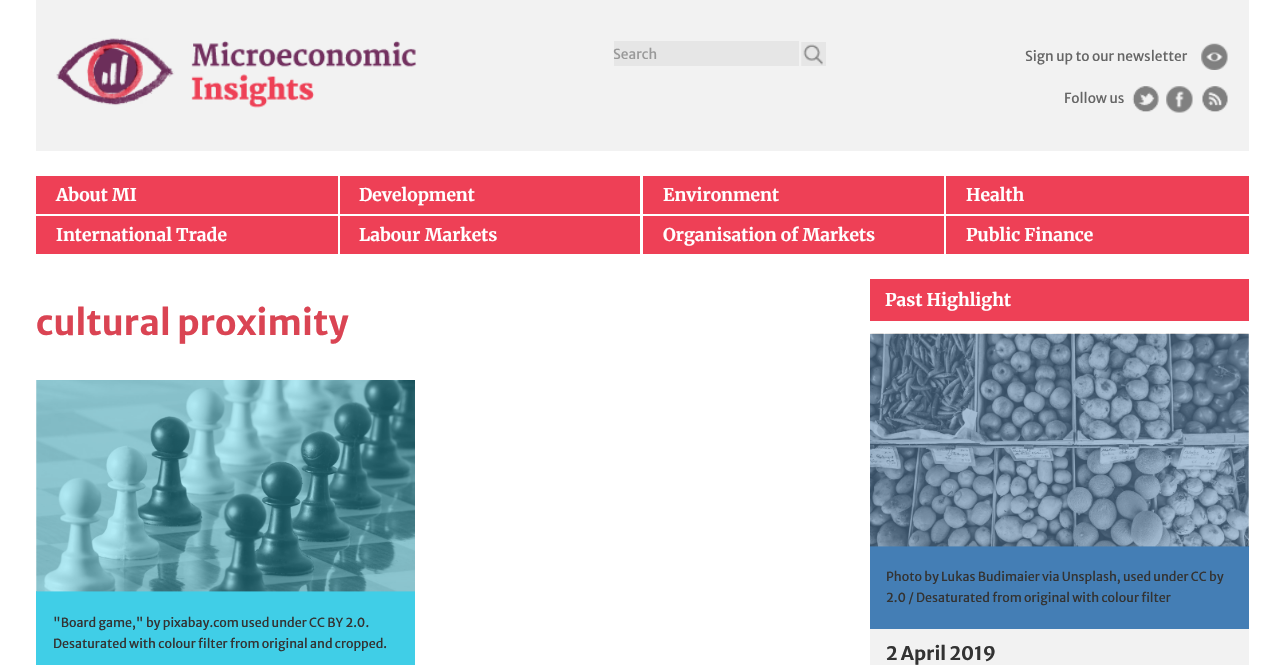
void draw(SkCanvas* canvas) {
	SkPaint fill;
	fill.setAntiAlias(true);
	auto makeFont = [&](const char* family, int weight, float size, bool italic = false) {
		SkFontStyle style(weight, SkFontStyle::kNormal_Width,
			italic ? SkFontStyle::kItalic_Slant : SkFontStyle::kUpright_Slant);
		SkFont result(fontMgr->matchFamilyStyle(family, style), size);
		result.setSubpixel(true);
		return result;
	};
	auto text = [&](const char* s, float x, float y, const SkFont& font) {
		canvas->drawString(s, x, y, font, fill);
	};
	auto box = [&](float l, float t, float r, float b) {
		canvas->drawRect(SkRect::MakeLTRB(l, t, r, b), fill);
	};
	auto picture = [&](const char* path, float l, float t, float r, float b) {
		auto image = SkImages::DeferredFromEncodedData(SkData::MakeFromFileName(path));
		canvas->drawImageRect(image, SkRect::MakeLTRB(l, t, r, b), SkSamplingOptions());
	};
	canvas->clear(0xFFFFFFFF);
	fill.setColor(0xFFF2F2F2);
	box(36, 0, 1249, 151);
	picture("image0.png", 56, 38, 417, 108);
	fill.setColor(0xFFE6E6E6);
	box(614, 41, 799, 66);
	picture("image1.png", 801, 42, 826, 66);
	picture("image2.png", 1201, 43, 1228, 70);
	picture("image3.png", 1132, 86, 1159, 112);
	picture("image4.png", 1166, 86, 1193, 113);
	picture("image5.png", 1202, 86, 1228, 112);
	fill.setColor(0xFFEE4056);
	box(36, 176, 338, 214);
	box(340, 176, 640, 214);
	box(643, 176, 944, 214);
	box(946, 176, 1249, 214);
	box(36, 216, 338, 254);
	box(340, 216, 640, 254);
	box(643, 216, 944, 254);
	box(946, 216, 1249, 254);
	fill.setColor(0xFF40CEE7);
	box(36, 591, 415, 665);
	picture("image6.png", 36, 380, 415, 592);
	fill.setColor(0xFFEE4056);
	box(870, 279, 1249, 321);
	fill.setColor(0xFFF2F2F2);
	box(870, 334, 1249, 665);
	fill.setColor(0xFF447EB5);
	box(870, 546, 1249, 629);
	picture("image7.png", 870, 333, 1249, 547);
	auto font1 = makeFont("Merriweather Sans", 400, 13.75f);
	fill.setColor(0xFF999999);
	text("Search", 613, 59, font1);
	fill.setColor(0xFF666666);
	text("Sign up to our newsletter", 1025, 61, font1);
	text("Follow us", 1064, 103, font1);
	auto font2 = makeFont("Merriweather", 700, 17.5f);
	fill.setColor(0xFFFFFFFF);
	text("About MI", 56, 201, font2);
	text("Development", 359, 201, font2);
	text("Environment", 663, 201, font2);
	text("Health", 966, 201, font2);
	text("International Trade", 56, 241, font2);
	text("Labour Markets", 359, 241, font2);
	text("Organisation of Markets", 663, 241, font2);
	text("Public Finance", 966, 241, font2);
	auto font3 = makeFont("Merriweather Sans", 700, 35);
	fill.setColor(0xFFDA4453);
	text("cultural proximity", 36, 335, font3);
	auto font4 = makeFont("Merriweather Sans", 400, 12.5f);
	fill.setColor(0xFF333333);
	text("\"Board game,\" by pixabay.com used under CC BY 2.0.", 53, 627, font4);
	text("Desaturated with colour filter from original and cropped.", 53, 648, font4);
	fill.setColor(0xFFFFFFFF);
	text("Past Highlight", 885, 306, font2);
	fill.setColor(0xFF333333);
	text("Photo by Lukas Budimaier via Unsplash, used under CC by", 886, 581, font4);
	text("2.0 / Desaturated from original with colour filter", 886, 602, font4);
	auto font5 = makeFont("Merriweather Sans", 700, 18.75f);
	text("2 April 2019", 886, 660, font5);
}
